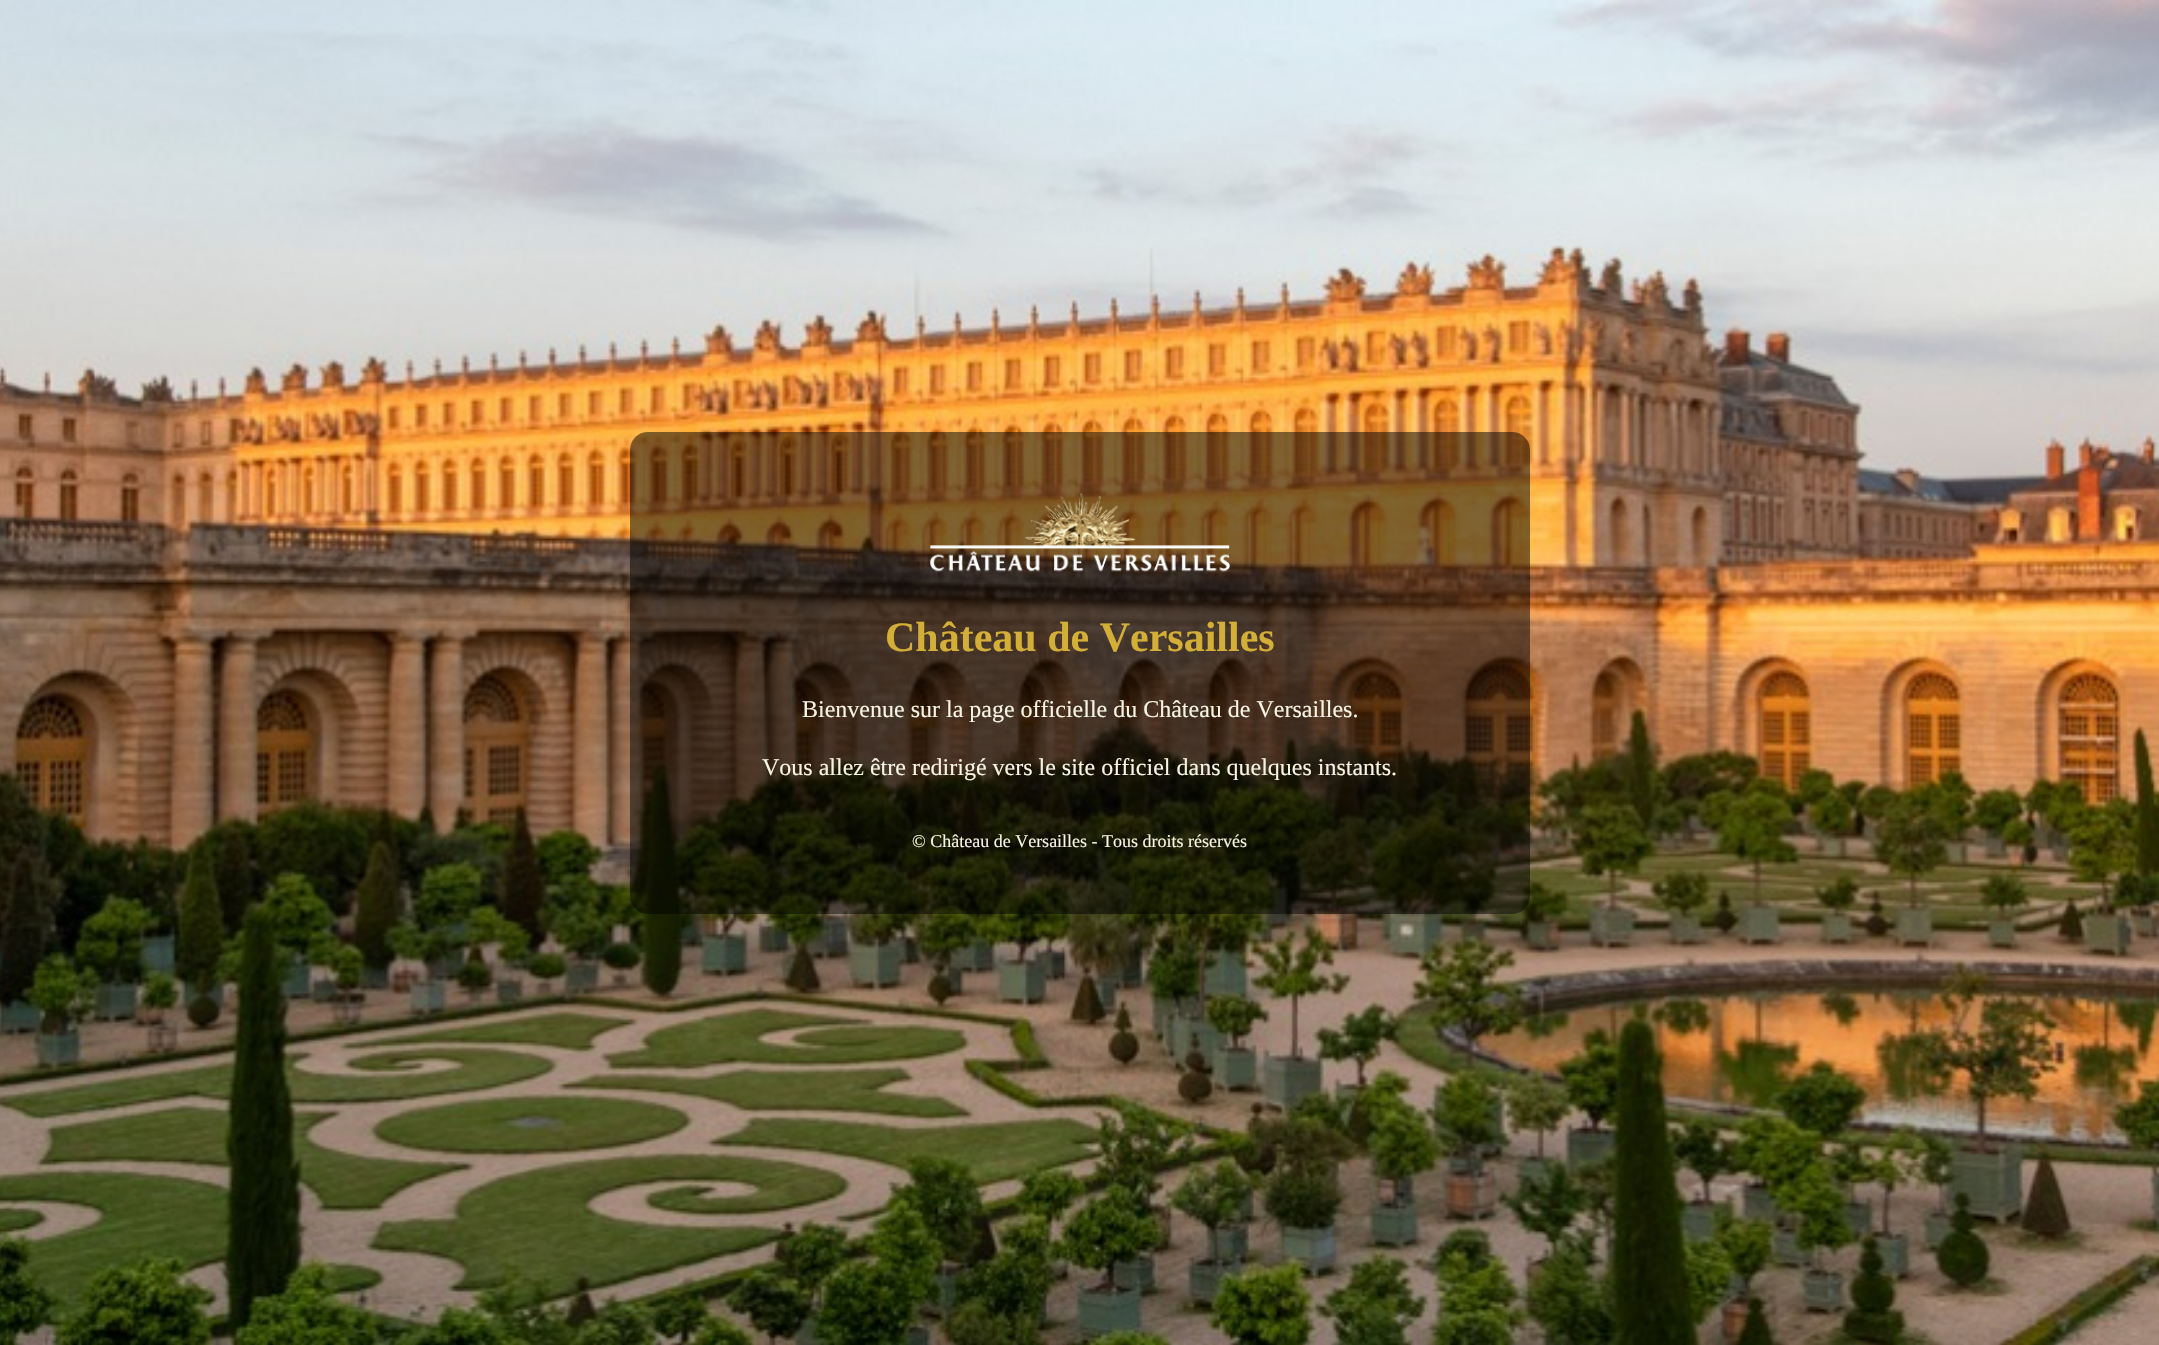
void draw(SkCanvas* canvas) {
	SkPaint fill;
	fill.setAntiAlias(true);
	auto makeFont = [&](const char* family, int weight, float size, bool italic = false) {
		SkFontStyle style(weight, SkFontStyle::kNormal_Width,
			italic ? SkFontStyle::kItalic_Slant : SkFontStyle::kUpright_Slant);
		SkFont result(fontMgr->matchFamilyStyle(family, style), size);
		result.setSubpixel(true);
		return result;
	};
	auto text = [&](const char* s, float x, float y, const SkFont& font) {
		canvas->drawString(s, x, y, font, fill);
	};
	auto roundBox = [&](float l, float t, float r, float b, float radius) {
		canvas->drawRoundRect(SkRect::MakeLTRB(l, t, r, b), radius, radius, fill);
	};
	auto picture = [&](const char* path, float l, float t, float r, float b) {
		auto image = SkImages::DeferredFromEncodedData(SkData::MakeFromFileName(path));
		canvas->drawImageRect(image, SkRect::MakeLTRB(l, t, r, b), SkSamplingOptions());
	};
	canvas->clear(0xFFFFFFFF);
	picture("image0.png", 0, 0, 2159, 1345);
	fill.setColor(0x80000000);
	roundBox(630, 432, 1530, 914, 18);
	picture("image1.png", 930, 493, 1230, 572);
	auto font1 = makeFont("Liberation Serif", 700, 42);
	fill.setColor(0xFFD4AF37);
	text("Château de Versailles", 885, 651, font1);
	auto font2 = makeFont("Liberation Serif", 400, 24);
	fill.setColor(0xFFF8F4E3);
	text("Bienvenue sur la page officielle du Château de Versailles.", 802, 717, font2);
	text("Vous allez être redirigé vers le site officiel dans quelques instants.", 762, 775, font2);
	auto font3 = makeFont("Liberation Serif", 400, 18);
	text("© Château de Versailles - Tous droits réservés", 912, 847, font3);
}
